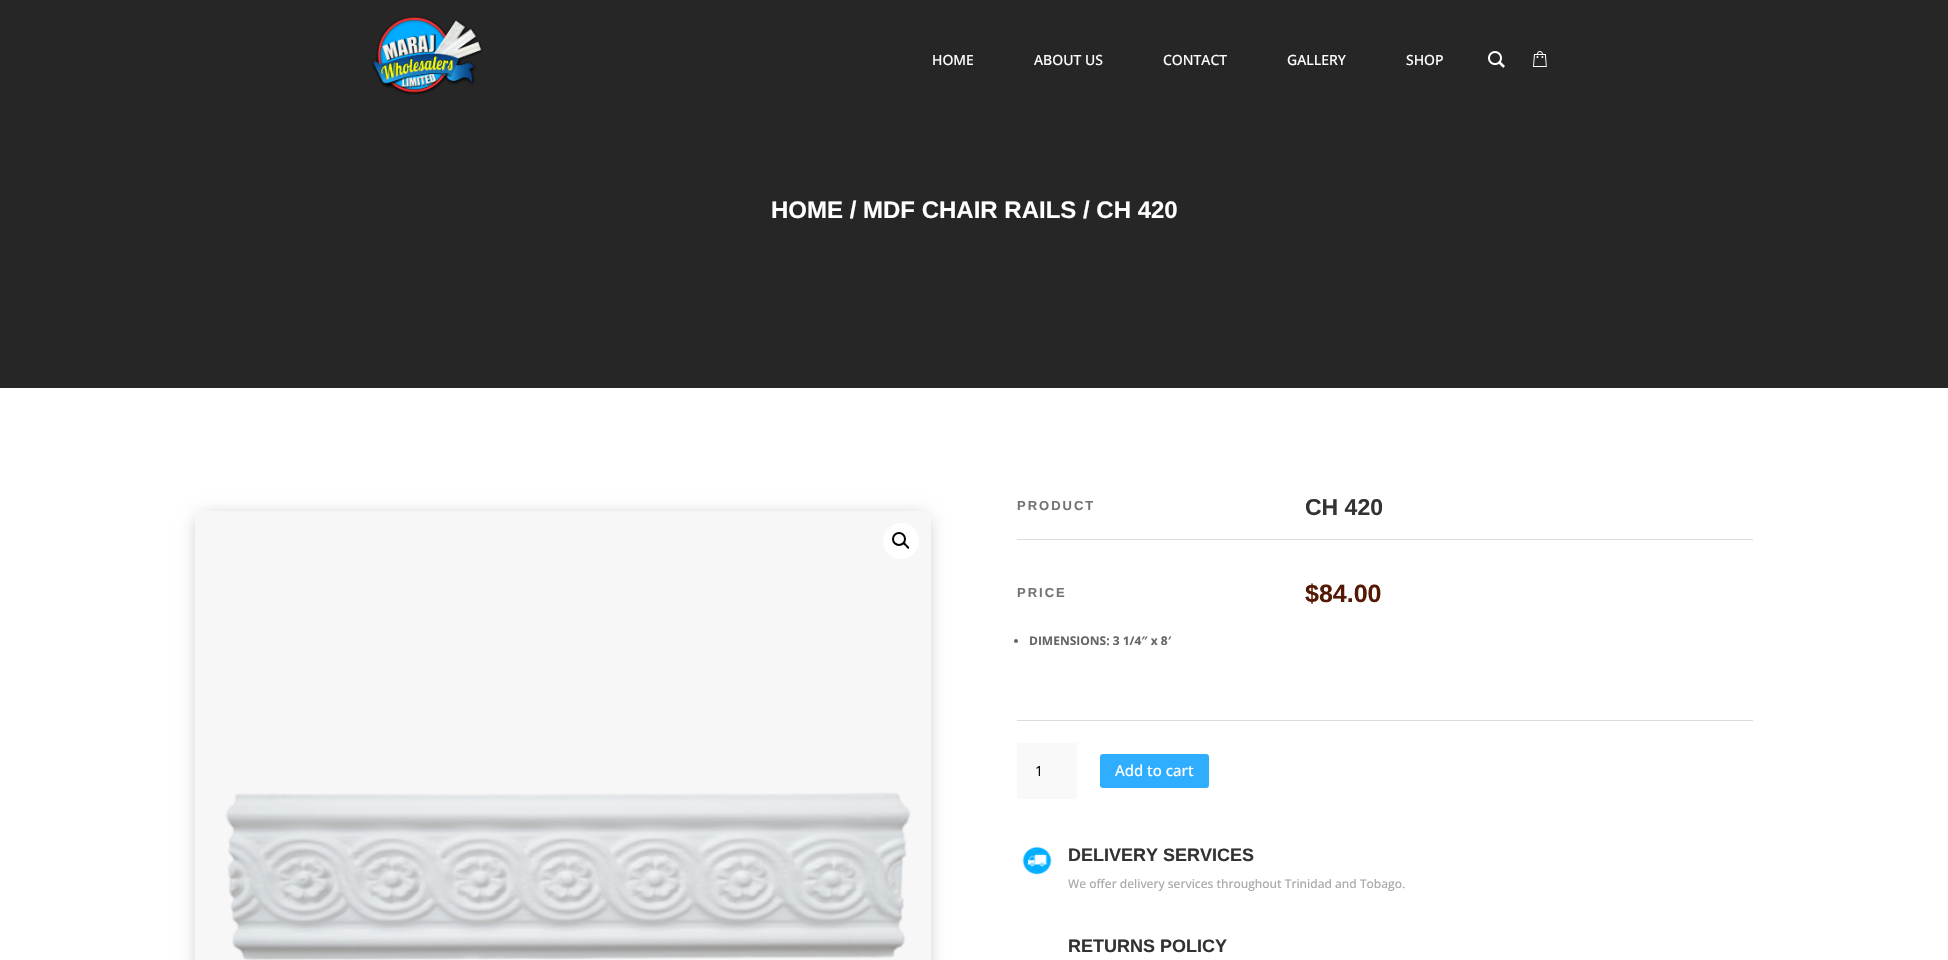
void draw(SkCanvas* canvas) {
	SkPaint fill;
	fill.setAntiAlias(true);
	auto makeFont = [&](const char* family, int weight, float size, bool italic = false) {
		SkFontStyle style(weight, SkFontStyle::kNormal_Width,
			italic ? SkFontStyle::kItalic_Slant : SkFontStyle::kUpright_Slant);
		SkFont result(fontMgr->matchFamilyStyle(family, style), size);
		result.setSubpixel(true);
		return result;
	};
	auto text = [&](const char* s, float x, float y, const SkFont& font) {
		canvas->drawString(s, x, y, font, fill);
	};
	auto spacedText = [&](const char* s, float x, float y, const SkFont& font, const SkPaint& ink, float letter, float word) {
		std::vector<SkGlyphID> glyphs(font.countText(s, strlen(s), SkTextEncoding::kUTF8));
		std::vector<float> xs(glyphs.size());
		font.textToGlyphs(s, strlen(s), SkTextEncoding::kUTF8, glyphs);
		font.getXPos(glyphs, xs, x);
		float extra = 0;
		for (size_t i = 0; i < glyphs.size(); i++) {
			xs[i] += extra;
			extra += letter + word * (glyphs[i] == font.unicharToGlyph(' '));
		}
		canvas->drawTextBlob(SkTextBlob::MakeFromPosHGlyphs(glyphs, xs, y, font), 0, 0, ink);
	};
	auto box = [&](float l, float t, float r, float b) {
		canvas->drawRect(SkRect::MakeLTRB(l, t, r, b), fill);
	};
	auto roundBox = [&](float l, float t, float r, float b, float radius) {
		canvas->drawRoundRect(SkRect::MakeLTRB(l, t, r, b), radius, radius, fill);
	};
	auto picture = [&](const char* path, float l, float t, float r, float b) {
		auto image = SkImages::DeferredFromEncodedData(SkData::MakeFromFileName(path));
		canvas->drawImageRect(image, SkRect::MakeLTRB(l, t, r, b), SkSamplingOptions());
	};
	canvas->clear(0xFFFFFFFF);
	fill.setColor(0xFF262626);
	box(0, 0, 1948, 388);
	picture("image0.png", 372, 16, 483, 95);
	picture("image1.png", 1488, 51, 1505, 68);
	picture("image2.png", 1533, 51, 1547, 67);
	fill.setColor(0x4D000000);
	fill.setMaskFilter(SkMaskFilter::MakeBlur(kNormal_SkBlurStyle, 9));
	canvas->drawRect(SkRect::MakeLTRB(200, 518, 926, 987), fill);
	fill.setMaskFilter(nullptr);
	picture("image3.png", 195, 511, 931, 960);
	fill.setColor(0xFFFFFFFF);
	canvas->drawCircle(901, 541, 18, fill);
	fill.setStyle(SkPaint::kStroke_Style);
	fill.setStrokeWidth(2);
	fill.setColor(0xFF000000);
	canvas->drawCircle(899, 539, 6, fill);
	fill.setStyle(SkPaint::kFill_Style);
	canvas->drawPath(SkPathBuilder().moveTo(903.5f, 542.5f).cubicTo(904.5f, 541.5f, 906, 544, 907, 545).cubicTo(907.5f, 545.5f, 910, 547, 909, 548.5f).cubicTo(908, 549.5f, 906, 547, 905.5f, 546).cubicTo(905, 545.5f, 902, 544, 903.5f, 542.5f).close().detach(), fill);
	fill.setColor(0xFFDCDCDC);
	box(1017, 539, 1753, 540);
	fill.setColor(0xFF666666);
	canvas->drawCircle(1016, 641, 2, fill);
	fill.setColor(0xFFDBDBDB);
	box(1017, 720, 1753, 721);
	fill.setColor(0xFFF9F9F9);
	box(1017, 743, 1077, 799);
	fill.setColor(0xFF2FAEFF);
	roundBox(1100, 754, 1209, 788, 3);
	picture("image4.png", 1022, 846, 1052, 875);
	auto font1 = makeFont("Open Sans", 500, 14);
	fill.setColor(0xFFFFFFFF);
	text("HOME", 932, 65, font1);
	text("ABOUT US", 1034, 65, font1);
	text("CONTACT", 1163, 65, font1);
	text("GALLERY", 1287, 65, font1);
	text("SHOP", 1406, 65, font1);
	auto font2 = makeFont("Liberation Sans", 700, 24);
	text("HOME / MDF CHAIR RAILS / CH 420", 771, 218, font2);
	auto font3 = makeFont("Liberation Sans", 700, 13);
	fill.setColor(0xFF737373);
	spacedText("PRODUCT", 1017, 510, font3, fill, 2, 0);
	auto font4 = makeFont("Liberation Sans", 700, 23);
	fill.setColor(0xFF333333);
	text("CH 420", 1305, 515, font4);
	fill.setColor(0xFF737373);
	spacedText("PRICE", 1017, 597, font3, fill, 2, 0);
	auto font5 = makeFont("Liberation Sans", 700, 25);
	fill.setColor(0xFF541904);
	text("$84.00", 1305, 602, font5);
	auto font6 = makeFont("Open Sans", 700, 12);
	fill.setColor(0xFF666666);
	text("DIMENSIONS: 3 1/4″ x 8′", 1029, 645, font6);
	auto font7 = makeFont("Open Sans", 400, 14);
	fill.setColor(0xFF000000);
	text("1", 1035, 776, font7);
	auto font8 = makeFont("Open Sans", 500, 15);
	fill.setColor(0xFFFFFFFF);
	text("Add to cart", 1115, 776, font8);
	auto font9 = makeFont("Liberation Sans", 700, 18);
	fill.setColor(0xFF333333);
	text("DELIVERY SERVICES", 1068, 861, font9);
	auto font10 = makeFont("Open Sans", 500, 12);
	fill.setColor(0xFFAAAAAA);
	text("We offer delivery services throughout Trinidad and Tobago.", 1068, 888, font10);
	fill.setColor(0xFF333333);
	text("RETURNS POLICY", 1068, 952, font9);
}
